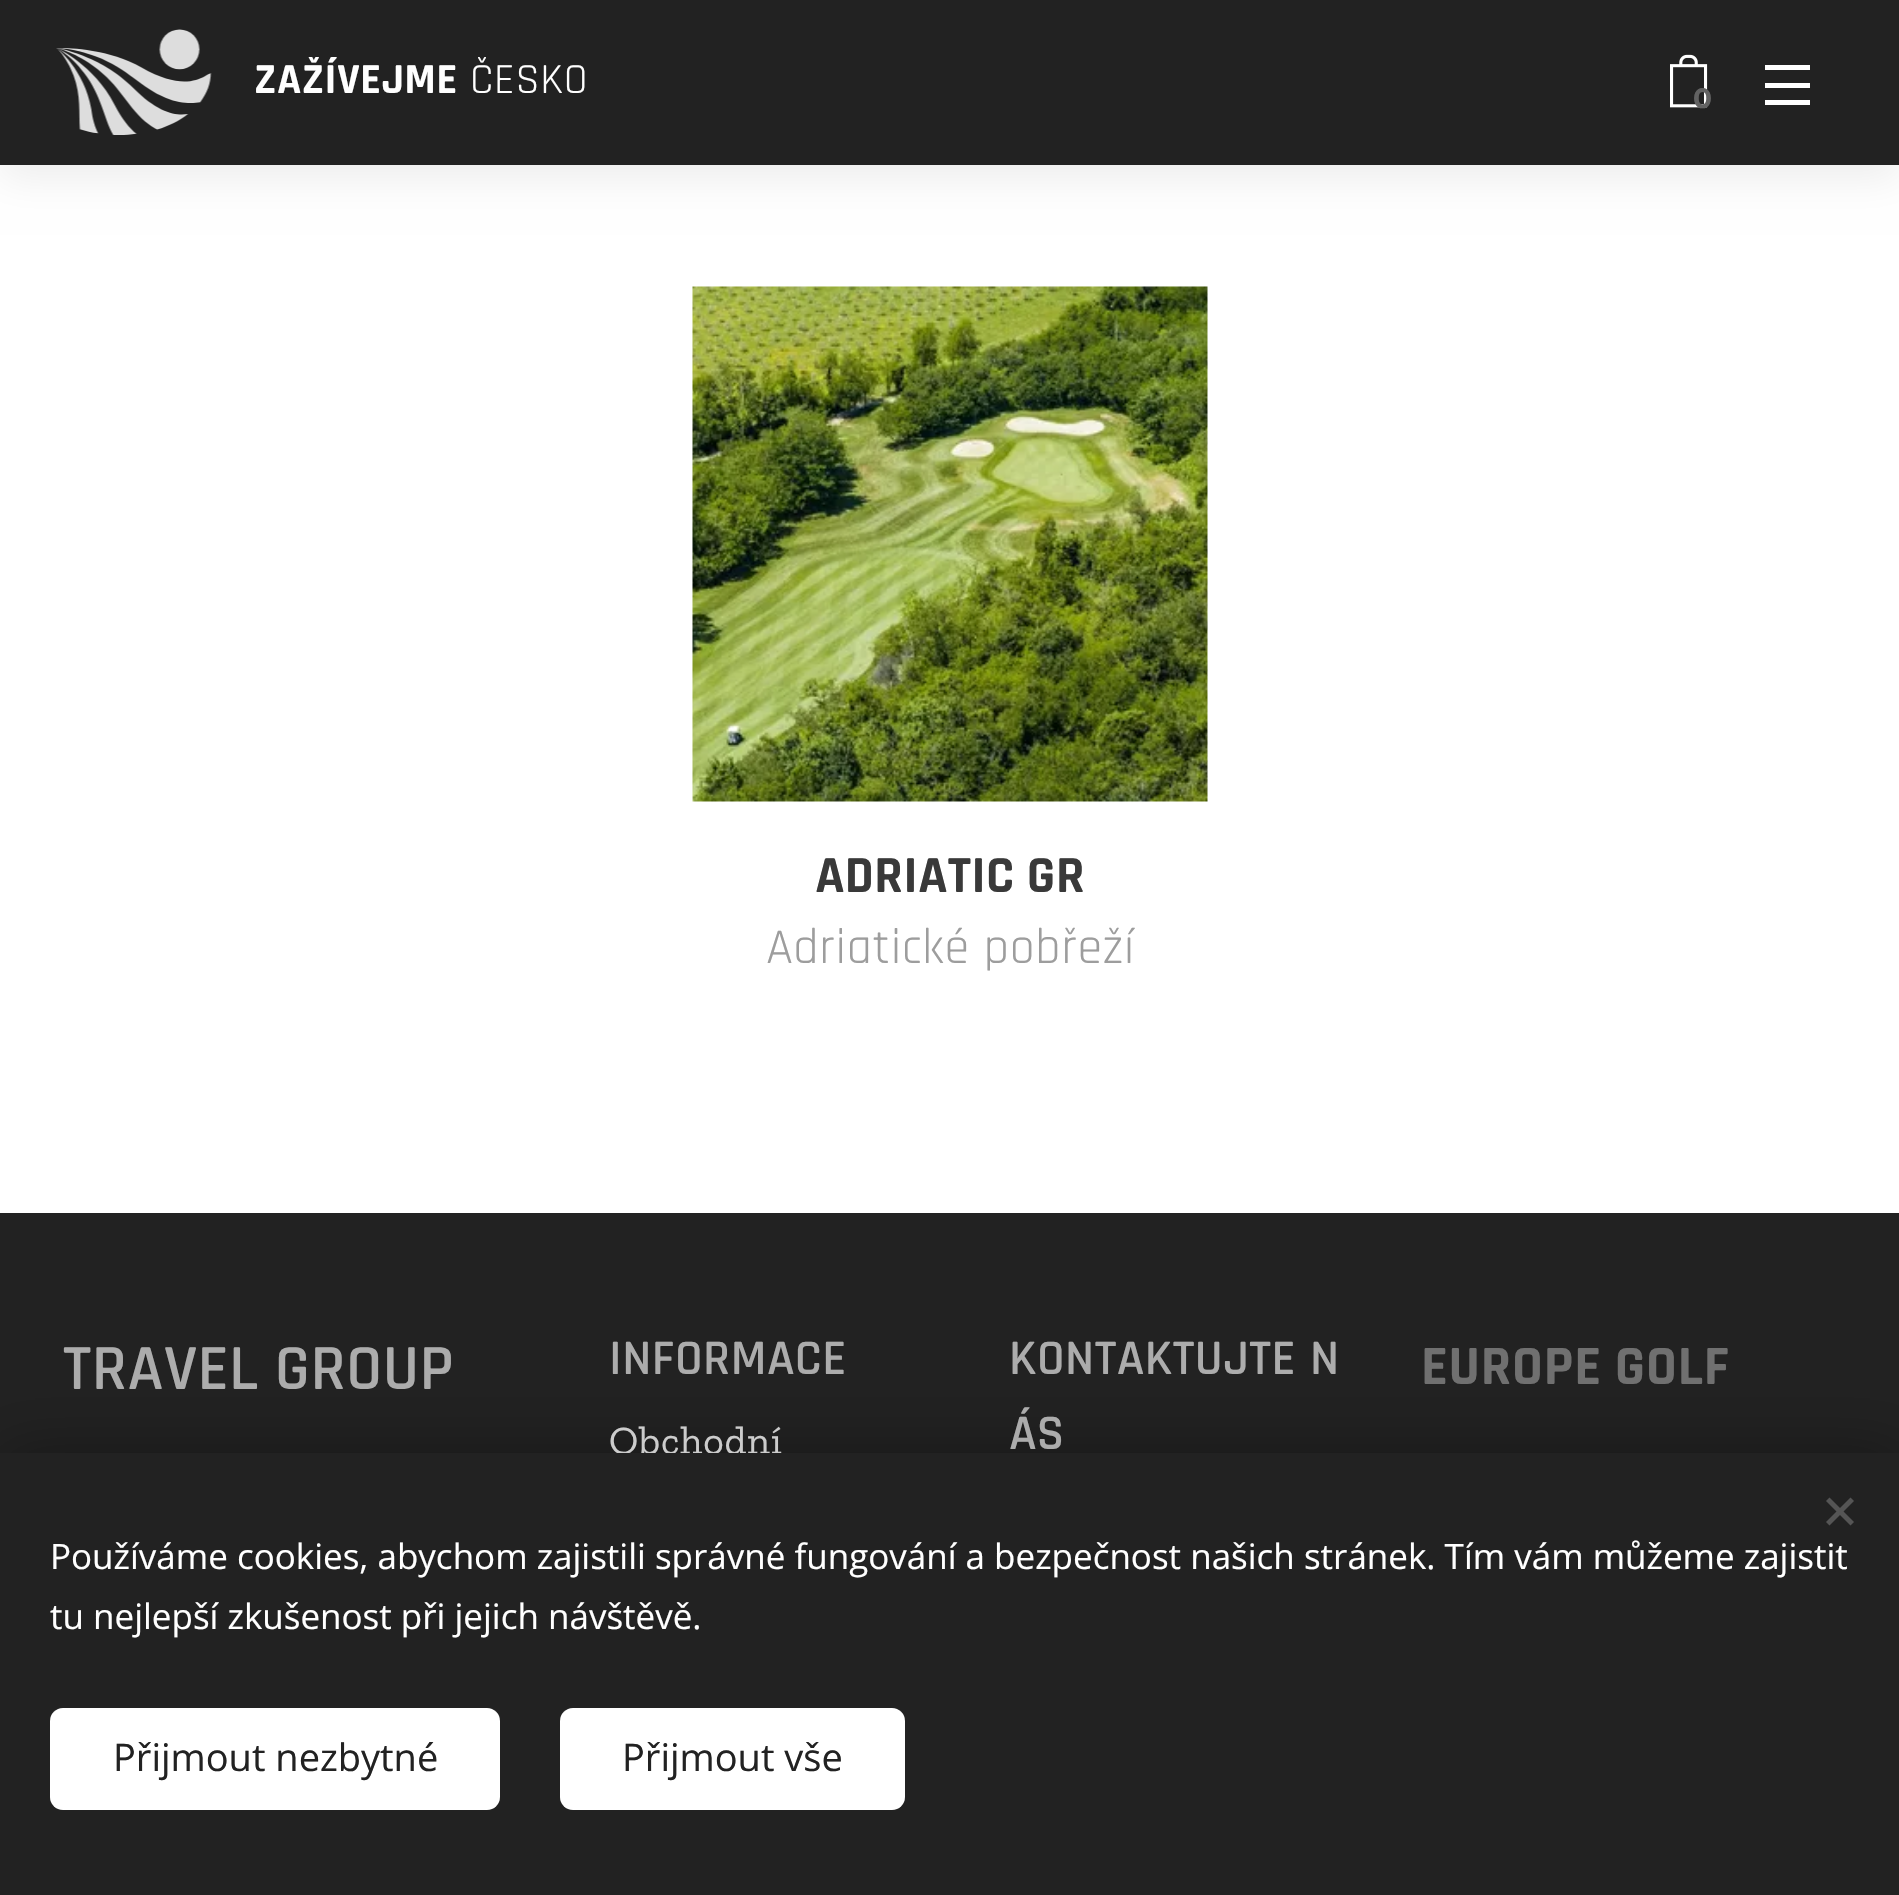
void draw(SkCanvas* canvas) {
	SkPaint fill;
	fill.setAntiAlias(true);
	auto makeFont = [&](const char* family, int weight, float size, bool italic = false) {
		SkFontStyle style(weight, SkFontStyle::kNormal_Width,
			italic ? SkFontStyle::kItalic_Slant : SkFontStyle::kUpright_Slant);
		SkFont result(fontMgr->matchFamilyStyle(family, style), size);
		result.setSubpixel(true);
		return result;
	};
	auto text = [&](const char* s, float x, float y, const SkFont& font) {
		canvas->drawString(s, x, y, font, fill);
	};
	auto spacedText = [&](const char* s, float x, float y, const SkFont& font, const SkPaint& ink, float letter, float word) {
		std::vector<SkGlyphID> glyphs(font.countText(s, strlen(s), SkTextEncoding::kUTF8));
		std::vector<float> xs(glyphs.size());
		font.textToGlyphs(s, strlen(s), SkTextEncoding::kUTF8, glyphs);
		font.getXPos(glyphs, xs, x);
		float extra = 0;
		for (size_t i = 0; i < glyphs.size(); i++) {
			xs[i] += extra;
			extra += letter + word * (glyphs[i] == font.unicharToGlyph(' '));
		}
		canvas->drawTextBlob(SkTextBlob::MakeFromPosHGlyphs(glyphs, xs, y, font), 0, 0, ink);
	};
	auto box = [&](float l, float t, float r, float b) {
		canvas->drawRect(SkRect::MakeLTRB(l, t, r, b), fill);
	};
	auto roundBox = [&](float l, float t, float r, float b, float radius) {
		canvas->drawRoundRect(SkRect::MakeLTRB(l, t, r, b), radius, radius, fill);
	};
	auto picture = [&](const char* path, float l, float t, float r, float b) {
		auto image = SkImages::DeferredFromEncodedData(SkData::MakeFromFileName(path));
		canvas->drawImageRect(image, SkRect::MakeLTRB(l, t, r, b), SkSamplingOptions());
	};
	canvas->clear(0xFFFFFFFF);
	fill.setColor(0x12000000);
	fill.setMaskFilter(SkMaskFilter::MakeBlur(kNormal_SkBlurStyle, 19));
	canvas->drawRect(SkRect::MakeLTRB(0, 13, 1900, 178), fill);
	fill.setMaskFilter(nullptr);
	fill.setColor(0xFF222222);
	box(0, 0, 1899, 165);
	picture("image0.png", 56, 29, 212, 135);
	picture("image1.png", 1670, 54, 1708, 108);
	fill.setColor(0xFFFFFFFF);
	box(1765, 83, 1810, 88);
	box(1765, 65, 1810, 70);
	box(1765, 100, 1810, 105);
	picture("image2.png", 692, 286, 1208, 802);
	fill.setColor(0xFF222222);
	box(0, 1213, 1899, 1453);
	fill.setColor(0x54000000);
	fill.setMaskFilter(SkMaskFilter::MakeBlur(kNormal_SkBlurStyle, 31));
	canvas->drawRect(SkRect::MakeLTRB(0, 1453, 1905, 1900), fill);
	fill.setMaskFilter(nullptr);
	auto font1 = makeFont("Rajdhani", 700, 43);
	fill.setColor(0xFFFFFFFF);
	spacedText("ZAŽÍVEJME", 254, 93, font1, fill, 0.7f, 0);
	auto font2 = makeFont("Rajdhani", 400, 43);
	spacedText("ČESKO", 470, 93, font2, fill, 0.7f, 0);
	auto font3 = makeFont("Montserrat", 700, 28);
	fill.setColor(0xFF626262);
	text("0", 1693, 108, font3);
	auto font4 = makeFont("Rajdhani", 700, 52.5f);
	fill.setColor(0xFF393939);
	spacedText("ADRIATIC GR", 815, 892, font4, fill, 0.5f, 0);
	auto font5 = makeFont("Rajdhani", 400, 50);
	fill.setColor(0xFF9D9D9D);
	spacedText("Adriatické pobřeží", 766, 963, font5, fill, 0.7f, 0);
	auto font6 = makeFont("Rajdhani", 600, 65);
	fill.setColor(0xFFACACAC);
	spacedText("TRAVEL GROUP", 63, 1389, font6, fill, 0.5f, 0);
	auto font7 = makeFont("Rajdhani", 600, 50);
	spacedText("INFORMACE", 609, 1374, font7, fill, 0.5f, 0);
	auto font8 = makeFont("Zilla Slab", 400, 40);
	fill.setColor(0xFFCCCCCC);
	spacedText("Obchodní", 609, 1454, font8, fill, 0.7f, 0);
	fill.setColor(0xFFACACAC);
	spacedText("KONTAKTUJTE", 1009, 1374, font7, fill, 0.5f, 0);
	spacedText("N", 1310, 1374, font7, fill, 0.5f, 0);
	spacedText("ÁS", 1009, 1449, font7, fill, 0.5f, 0);
	auto font9 = makeFont("Rajdhani", 700, 56);
	fill.setColor(0xFF707070);
	spacedText("EUROPE GOLF", 1421, 1384, font9, fill, 0.75f, 0);
	fill.setColor(0xFF222222);
	box(0, 1453, 1899, 1895);
	fill.setColor(0xFF555555);
	canvas->drawPath(SkPathBuilder().moveTo(1826, 1522).lineTo(1850.5f, 1497.5f).lineTo(1854, 1501).lineTo(1829.5f, 1525.5f).close().detach(), fill);
	canvas->drawPath(SkPathBuilder().moveTo(1829.5f, 1497.5f).lineTo(1854, 1522).lineTo(1850.5f, 1525.5f).lineTo(1826, 1501).close().detach(), fill);
	auto font10 = makeFont("Open Sans", 400, 35);
	fill.setColor(0xFFFFFFFF);
	text("Používáme cookies, abychom zajistili správné fungování a bezpečnost našich stránek. Tím vám můžeme zajistit", 50, 1569, font10);
	text("tu nejlepší zkušenost při jejich návštěvě.", 50, 1629, font10);
	roundBox(50, 1708, 500, 1810, 13);
	auto font11 = makeFont("Open Sans", 400, 38);
	fill.setColor(0xFF222222);
	text("Přijmout nezbytné", 113, 1771, font11);
	fill.setColor(0xFFFFFFFF);
	roundBox(560, 1708, 905, 1810, 13);
	fill.setColor(0xFF222222);
	text("Přijmout vše", 622, 1771, font11);
}
